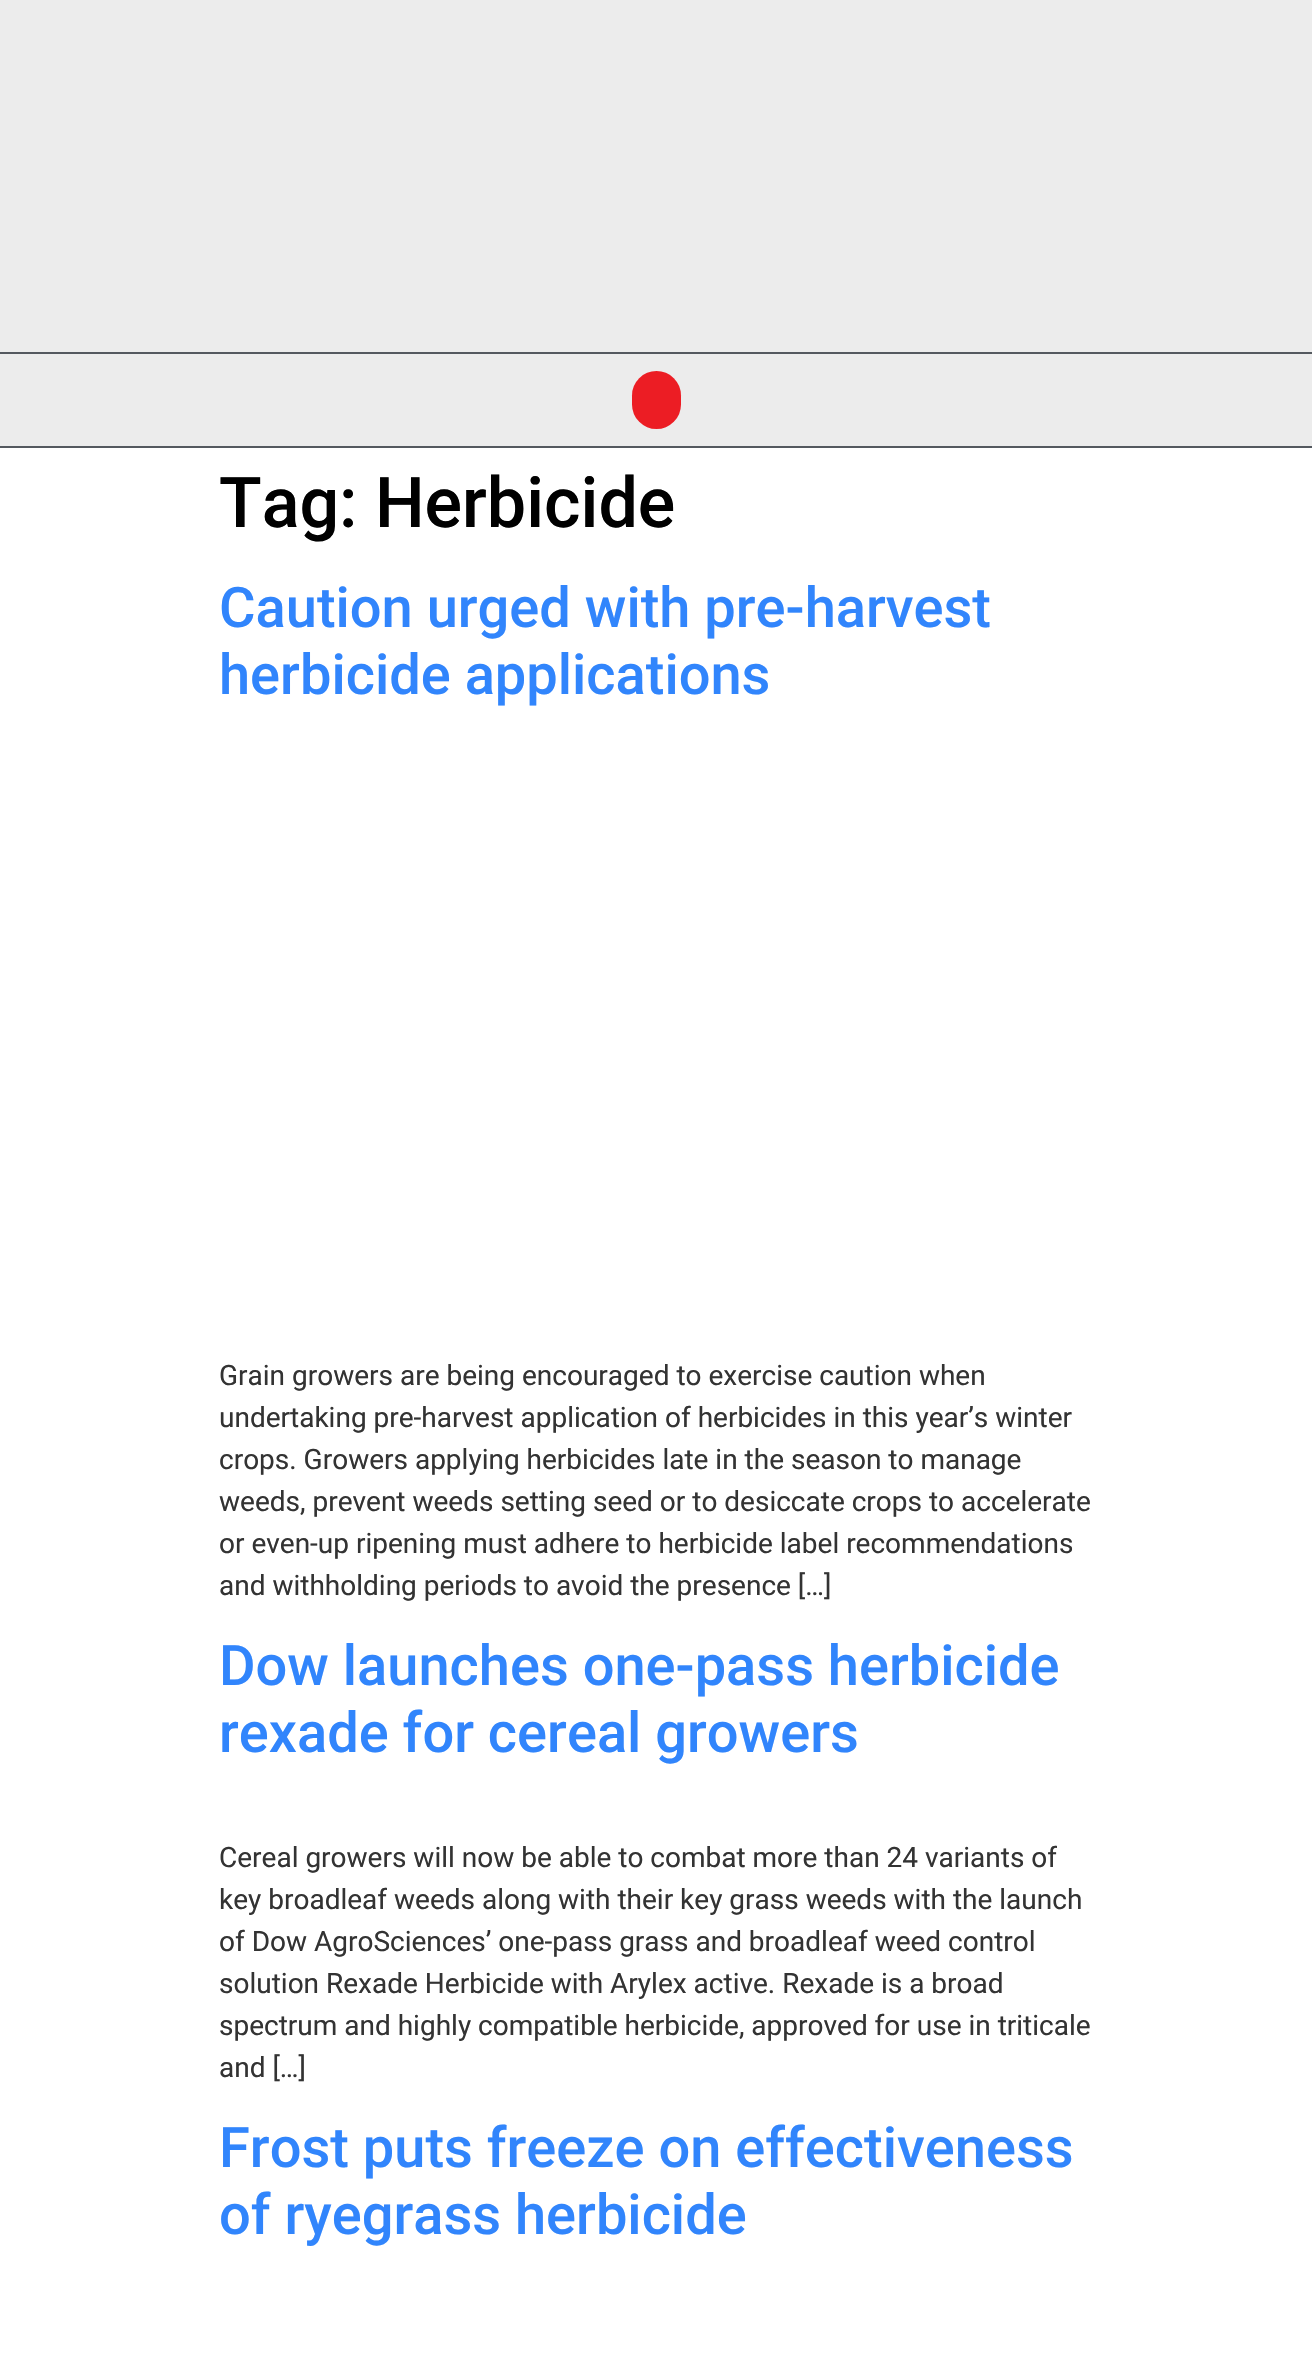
void draw(SkCanvas* canvas) {
	SkPaint fill;
	fill.setAntiAlias(true);
	auto makeFont = [&](const char* family, int weight, float size, bool italic = false) {
		SkFontStyle style(weight, SkFontStyle::kNormal_Width,
			italic ? SkFontStyle::kItalic_Slant : SkFontStyle::kUpright_Slant);
		SkFont result(fontMgr->matchFamilyStyle(family, style), size);
		result.setSubpixel(true);
		return result;
	};
	auto text = [&](const char* s, float x, float y, const SkFont& font) {
		canvas->drawString(s, x, y, font, fill);
	};
	auto box = [&](float l, float t, float r, float b) {
		canvas->drawRect(SkRect::MakeLTRB(l, t, r, b), fill);
	};
	auto roundBox = [&](float l, float t, float r, float b, float radius) {
		canvas->drawRoundRect(SkRect::MakeLTRB(l, t, r, b), radius, radius, fill);
	};
	canvas->clear(0xFFFFFFFF);
	fill.setColor(0xFFECECEC);
	box(0, 0, 1312, 352);
	box(0, 354, 1312, 446);
	fill.setColor(0xFF54595F);
	box(0, 352, 1312, 354);
	box(0, 446, 1312, 448);
	fill.setColor(0xFFEC1D24);
	roundBox(632, 371, 681, 429, 24.5f);
	auto font1 = makeFont("Roboto", 500, 70);
	fill.setColor(0xFF000000);
	text("Tag: Herbicide", 219, 527, font1);
	auto font2 = makeFont("Roboto", 500, 56);
	fill.setColor(0xFF3185FC);
	text("Caution urged with pre-harvest", 219, 627, font2);
	text("herbicide applications", 219, 694, font2);
	auto font3 = makeFont("Roboto", 400, 28);
	fill.setColor(0xFF333333);
	text("Grain growers are being encouraged to exercise caution when", 219, 1385, font3);
	text("undertaking pre-harvest application of herbicides in this year’s winter", 219, 1427, font3);
	text("crops. Growers applying herbicides late in the season to manage", 219, 1469, font3);
	text("weeds, prevent weeds setting seed or to desiccate crops to accelerate", 219, 1511, font3);
	text("or even-up ripening must adhere to herbicide label recommendations", 219, 1553, font3);
	text("and withholding periods to avoid the presence […]", 219, 1595, font3);
	fill.setColor(0xFF3185FC);
	text("Dow launches one-pass herbicide", 219, 1685, font2);
	text("rexade for cereal growers", 219, 1752, font2);
	fill.setColor(0xFF333333);
	text("Cereal growers will now be able to combat more than 24 variants of", 219, 1867, font3);
	text("key broadleaf weeds along with their key grass weeds with the launch", 219, 1909, font3);
	text("of Dow AgroSciences’ one-pass grass and broadleaf weed control", 219, 1951, font3);
	text("solution Rexade Herbicide with Arylex active. Rexade is a broad", 219, 1993, font3);
	text("spectrum and highly compatible herbicide, approved for use in triticale", 219, 2035, font3);
	text("and […]", 219, 2077, font3);
	fill.setColor(0xFF3185FC);
	text("Frost puts freeze on effectiveness", 219, 2167, font2);
	text("of ryegrass herbicide", 219, 2234, font2);
}
